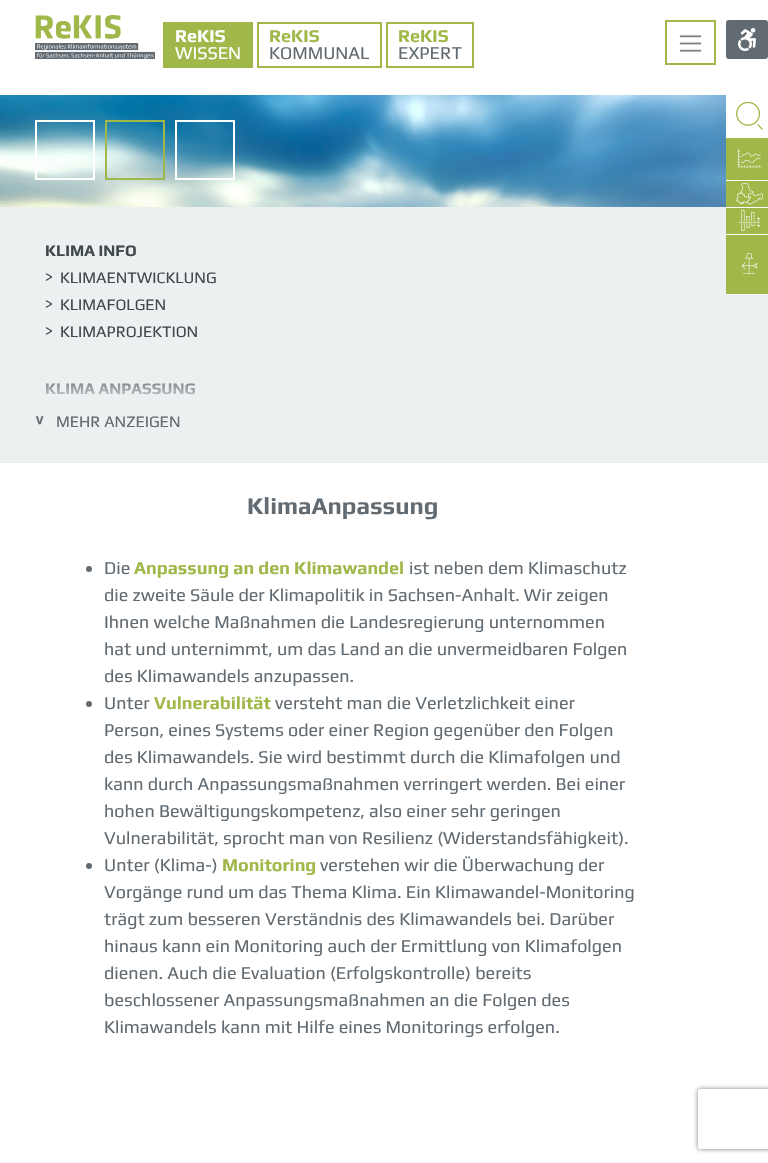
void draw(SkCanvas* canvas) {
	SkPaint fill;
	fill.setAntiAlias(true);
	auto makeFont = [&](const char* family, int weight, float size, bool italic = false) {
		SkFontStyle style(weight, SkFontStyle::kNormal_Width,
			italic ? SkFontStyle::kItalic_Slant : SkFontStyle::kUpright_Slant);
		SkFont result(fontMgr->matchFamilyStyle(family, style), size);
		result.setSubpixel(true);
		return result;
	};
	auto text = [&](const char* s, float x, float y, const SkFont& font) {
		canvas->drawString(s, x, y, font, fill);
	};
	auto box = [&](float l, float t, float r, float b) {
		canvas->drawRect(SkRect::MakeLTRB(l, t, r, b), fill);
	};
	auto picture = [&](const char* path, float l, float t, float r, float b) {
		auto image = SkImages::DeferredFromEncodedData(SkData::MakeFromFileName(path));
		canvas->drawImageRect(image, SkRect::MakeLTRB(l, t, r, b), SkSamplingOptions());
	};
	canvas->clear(0xFFFFFFFF);
	picture("image0.png", 35, 15, 155, 59);
	fill.setColor(0xFFA0B84A);
	box(163, 22, 253, 68);
	fill.setStyle(SkPaint::kStroke_Style);
	fill.setStrokeWidth(2);
	canvas->drawRect(SkRect::MakeLTRB(258, 23, 381, 67), fill);
	canvas->drawRect(SkRect::MakeLTRB(387, 23, 473, 67), fill);
	canvas->drawRect(SkRect::MakeLTRB(666, 21, 715, 64), fill);
	picture("image1.png", 679, 35, 702, 52);
	fill.setStyle(SkPaint::kFill_Style);
	fill.setColor(0xFF626B72);
	canvas->drawRoundRect(SkRect::MakeLTRB(727, 21, 767, 58), 2, 2, fill);
	fill.setStyle(SkPaint::kStroke_Style);
	canvas->drawRoundRect(SkRect::MakeLTRB(727, 21, 767, 58), 2, 2, fill);
	picture("image2.png", 738, 28, 756, 51);
	picture("image3.png", 0, 95, 726, 207);
	fill.setColor(0xFFFFFFFF);
	canvas->drawRect(SkRect::MakeLTRB(36, 121, 94, 179), fill);
	fill.setColor(0xFFA0B84A);
	canvas->drawRect(SkRect::MakeLTRB(106, 121, 164, 179), fill);
	fill.setColor(0xFFFFFFFF);
	canvas->drawRect(SkRect::MakeLTRB(176, 121, 234, 179), fill);
	fill.setStyle(SkPaint::kFill_Style);
	fill.setColor(0xFFEDF0F1);
	box(0, 207, 768, 463);
	fill.setColor(0xFF626B72);
	canvas->drawCircle(89, 569, 3, fill);
	canvas->drawCircle(89, 704, 3, fill);
	canvas->drawCircle(89, 866, 3, fill);
	picture("image4.png", 736, 101, 763, 130);
	fill.setColor(0xFFA0B84A);
	box(726, 138, 768, 180);
	picture("image5.png", 737, 148, 762, 168);
	box(726, 181, 768, 207);
	picture("image6.png", 736, 183, 763, 206);
	fill.setColor(0xFFFFFFFF);
	box(726, 207, 768, 208);
	fill.setColor(0xFFA0B84A);
	box(726, 208, 768, 234);
	picture("image7.png", 738, 210, 761, 231);
	fill.setColor(0xFFFFFFFF);
	box(726, 234, 768, 235);
	fill.setColor(0xFFA0B84A);
	box(726, 235, 768, 294);
	picture("image8.png", 741, 253, 758, 274);
	fill.setColor(0xFFFFFFFF);
	box(726, 294, 768, 295);
	canvas->save();
	canvas->clipPath(SkPathBuilder(SkPathFillType::kEvenOdd).moveTo(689, 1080).lineTo(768, 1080).lineTo(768, 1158).lineTo(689, 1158).close().moveTo(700, 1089).lineTo(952, 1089).cubicTo(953, 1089, 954, 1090, 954, 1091).lineTo(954, 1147).cubicTo(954, 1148, 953, 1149, 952, 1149).lineTo(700, 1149).cubicTo(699, 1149, 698, 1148, 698, 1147).lineTo(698, 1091).cubicTo(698, 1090, 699, 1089, 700, 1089).close().detach(), true);
	fill.setColor(0xFF808080);
	fill.setMaskFilter(SkMaskFilter::MakeBlur(kNormal_SkBlurStyle, 2.5f));
	canvas->drawRoundRect(SkRect::MakeLTRB(698, 1089, 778, 1149), 2, 2, fill);
	fill.setMaskFilter(nullptr);
	canvas->restore();
	auto font1 = makeFont("Play", 700, 18);
	fill.setColor(0xFFFFFFFF);
	text("ReKIS", 175, 42, font1);
	auto font2 = makeFont("Play", 400, 18);
	text("WISSEN", 175, 59, font2);
	fill.setColor(0xFFA0B84A);
	text("ReKIS", 269, 42, font1);
	fill.setColor(0xFF626B72);
	text("KOMMUNAL", 269, 59, font2);
	fill.setColor(0xFFA0B84A);
	text("ReKIS", 398, 42, font1);
	fill.setColor(0xFF626B72);
	text("EXPERT", 398, 59, font2);
	auto font3 = makeFont("Play", 700, 16);
	fill.setColor(0xFF40494C);
	text("KLIMA INFO", 45, 256, font3);
	auto font4 = makeFont("Play", 400, 16);
	text(">", 45, 282, font4);
	text("KLIMAENTWICKLUNG", 60, 283, font4);
	text(">", 45, 309, font4);
	text("KLIMAFOLGEN", 60, 310, font4);
	text(">", 45, 336, font4);
	text("KLIMAPROJEKTION", 60, 337, font4);
	text("KLIMA ANPASSUNG", 45, 394, font3);
	{
		const SkColor colors[] = {0x00EDF0F1, 0xFFEDF0F1};
		const float stops[] = {0, 1};
		const SkPoint ends[] = {{384, 367}, {384, 407}};
		fill.setShader(SkGradientShader::MakeLinear(ends, colors, stops, 2, SkTileMode::kClamp));
		fill.setAlpha(255);
	}
	box(46, 383, 195, 395);
	fill.setShader(nullptr);
	fill.setColor(0xFF626B72);
	canvas->save();
	canvas->rotate(90, 34, 415);
	text(">", 34, 415, font1);
	canvas->restore();
	text("MEHR ANZEIGEN", 56, 427, font4);
	auto font5 = makeFont("Play", 700, 24);
	text("KlimaAnpassung", 247, 514, font5);
	text("Die", 104, 574, font2);
	fill.setColor(0xFFA0B84A);
	text("Anpassung an den Klimawandel", 134, 574, font1);
	fill.setColor(0xFF626B72);
	text("ist neben dem Klimaschutz", 409, 574, font2);
	text("die zweite Säule der Klimapolitik in Sachsen-Anhalt. Wir zeigen", 104, 601, font2);
	text("Ihnen welche Maßnahmen die Landesregierung unternommen", 104, 628, font2);
	text("hat und unternimmt, um das Land an die unvermeidbaren Folgen", 104, 655, font2);
	text("des Klimawandels anzupassen.", 104, 682, font2);
	text("Unter", 104, 709, font2);
	fill.setColor(0xFFA0B84A);
	text("Vulnerabilität", 154, 709, font1);
	fill.setColor(0xFF626B72);
	text("versteht man die Verletzlichkeit einer", 275, 709, font2);
	text("Person, eines Systems oder einer Region gegenüber den Folgen", 104, 736, font2);
	text("des Klimawandels. Sie wird bestimmt durch die Klimafolgen und", 104, 763, font2);
	text("kann durch Anpassungsmaßnahmen verringert werden. Bei einer", 104, 790, font2);
	text("hohen Bewältigungskompetenz, also einer sehr geringen", 104, 817, font2);
	text("Vulnerabilität, sprocht man von Resilienz (Widerstandsfähigkeit).", 104, 844, font2);
	text("Unter (Klima-)", 104, 871, font2);
	fill.setColor(0xFFA0B84A);
	text("Monitoring", 222, 871, font1);
	fill.setColor(0xFF626B72);
	text("verstehen wir die Überwachung der", 320, 871, font2);
	text("Vorgänge rund um das Thema Klima. Ein Klimawandel-Monitoring", 104, 898, font2);
	text("trägt zum besseren Verständnis des Klimawandels bei. Darüber", 104, 925, font2);
	text("hinaus kann ein Monitoring auch der Ermittlung von Klimafolgen", 104, 952, font2);
	text("dienen. Auch die Evaluation (Erfolgskontrolle) bereits", 104, 979, font2);
	text("beschlossener Anpassungsmaßnahmen an die Folgen des", 104, 1006, font2);
	text("Klimawandels kann mit Hilfe eines Monitorings erfolgen.", 104, 1033, font2);
}
